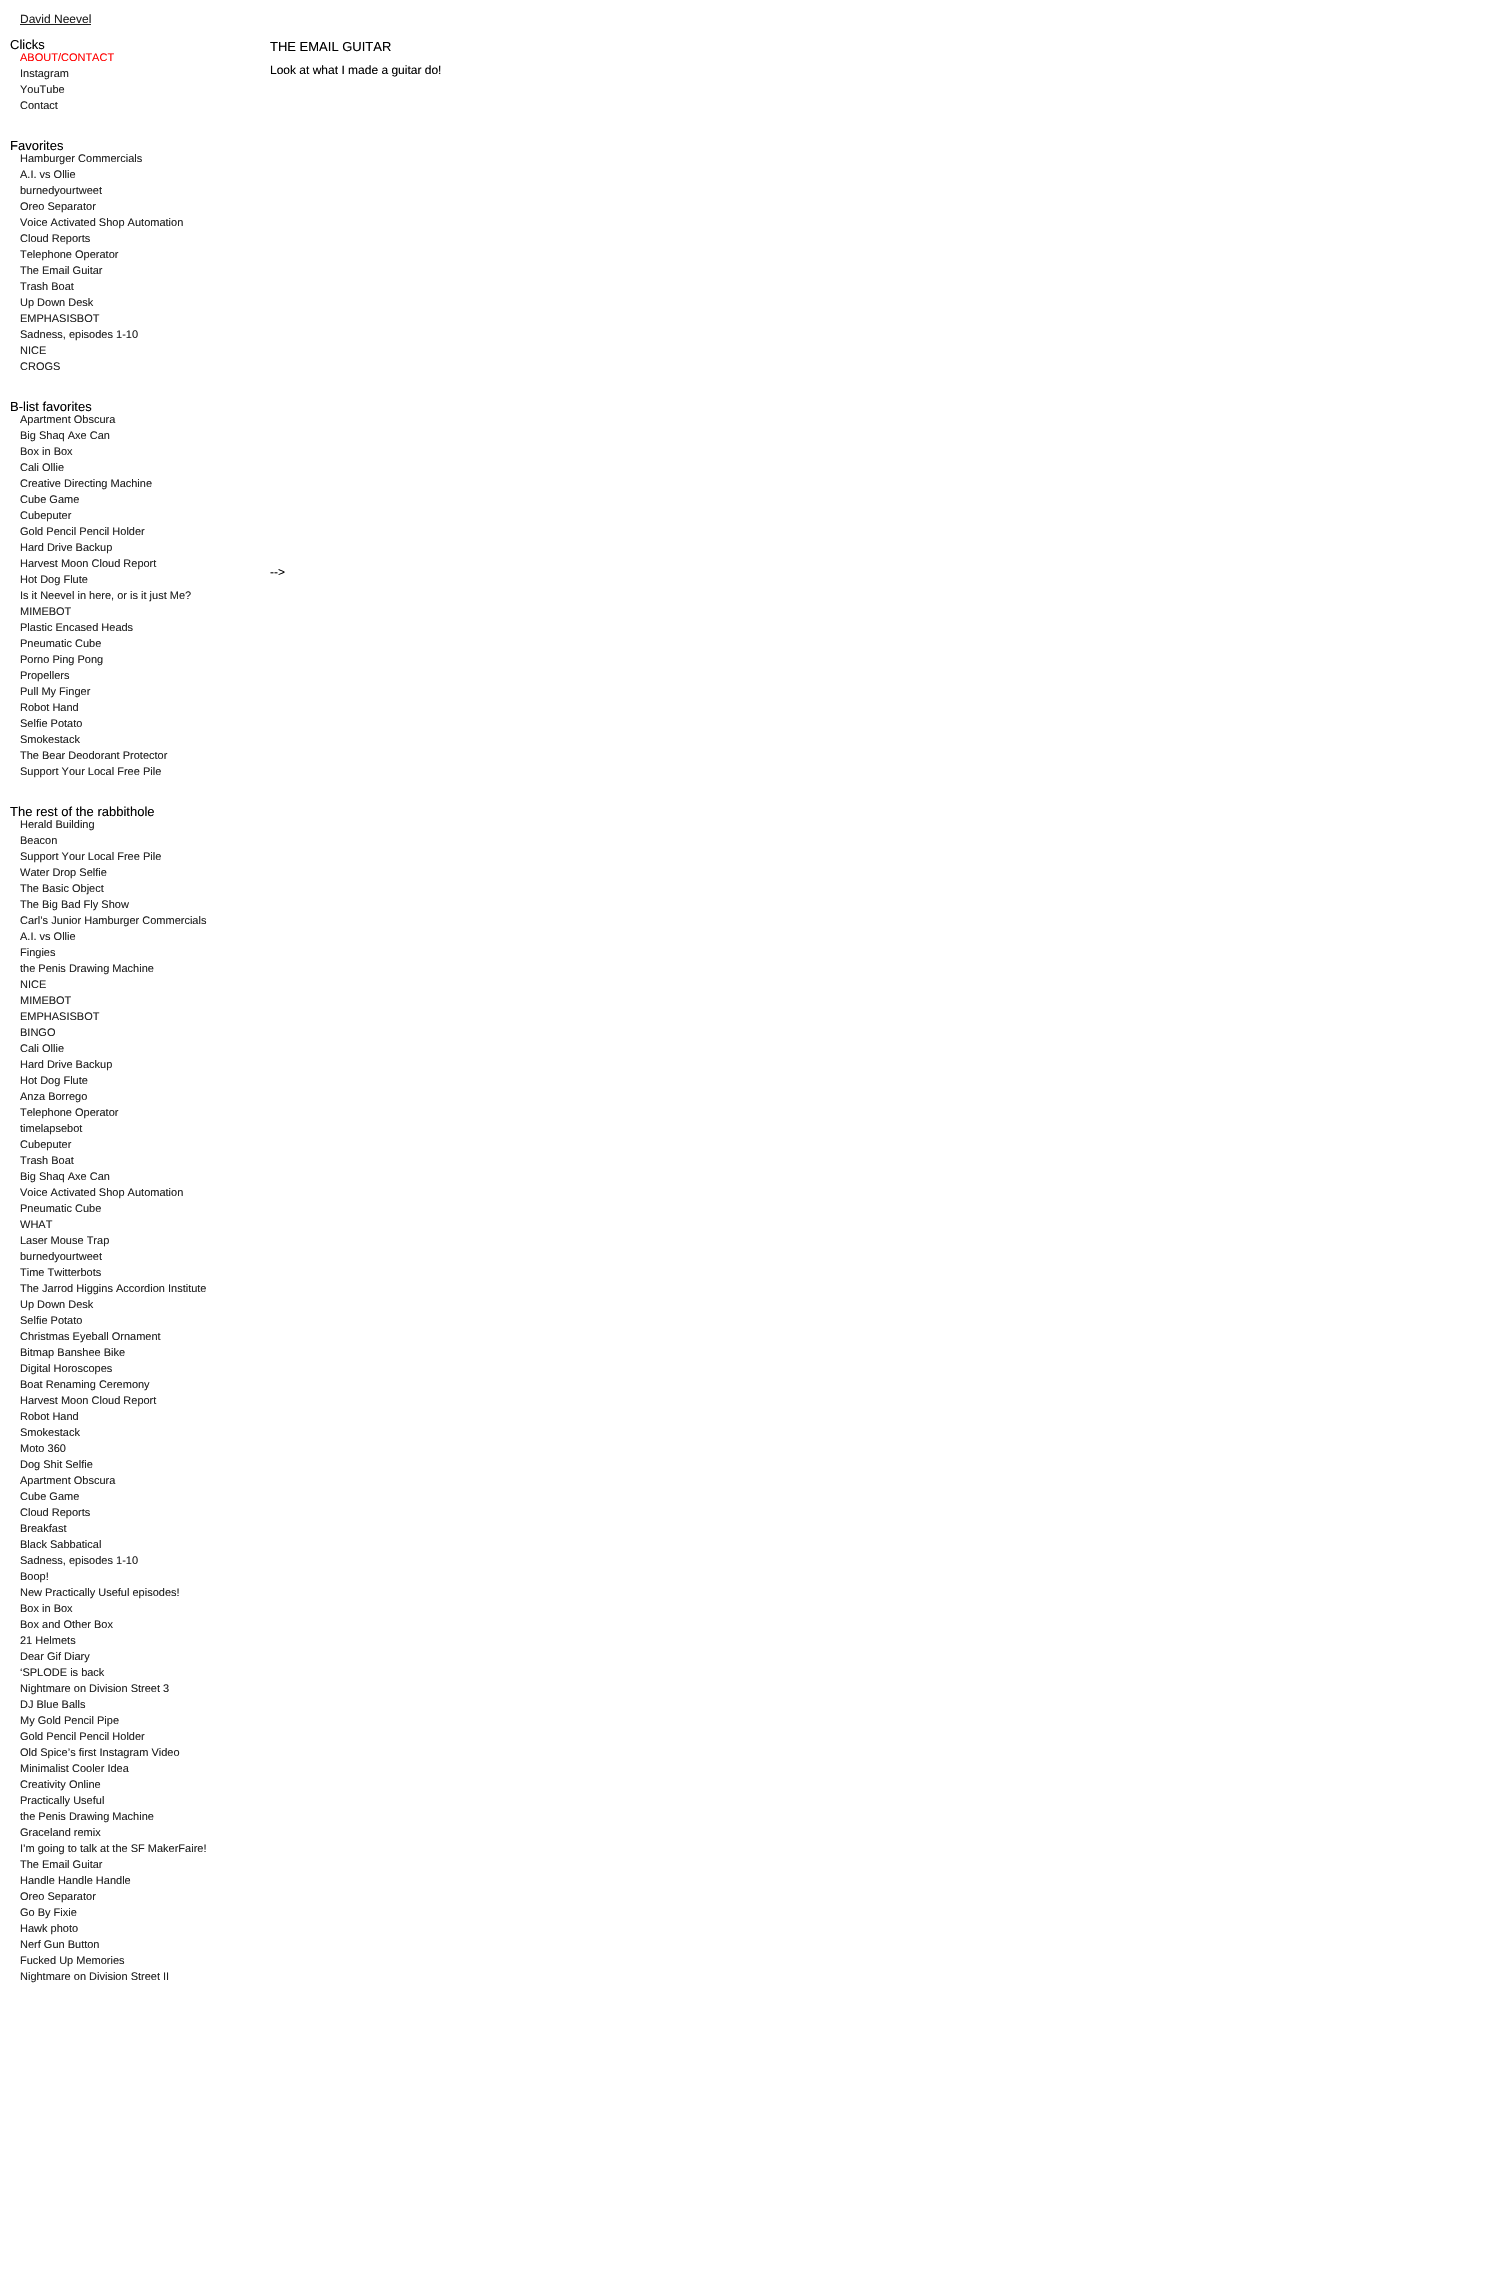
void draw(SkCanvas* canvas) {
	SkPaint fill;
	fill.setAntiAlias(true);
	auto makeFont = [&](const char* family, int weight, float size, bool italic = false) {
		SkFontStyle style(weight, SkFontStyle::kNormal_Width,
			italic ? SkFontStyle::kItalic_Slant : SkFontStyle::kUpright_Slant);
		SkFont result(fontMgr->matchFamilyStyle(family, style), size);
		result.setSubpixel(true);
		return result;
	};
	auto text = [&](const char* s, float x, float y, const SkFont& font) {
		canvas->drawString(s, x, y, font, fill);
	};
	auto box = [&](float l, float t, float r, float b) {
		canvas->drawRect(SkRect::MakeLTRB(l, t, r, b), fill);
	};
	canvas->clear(0xFFFFFFFF);
	fill.setColor(0xFF222222);
	box(20, 24, 91, 25);
	auto font1 = makeFont("Liberation Sans", 400, 12);
	text("David Neevel", 20, 23, font1);
	auto font2 = makeFont("Liberation Sans", 400, 13);
	fill.setColor(0xFF000000);
	text("Clicks", 10, 49, font2);
	auto font3 = makeFont("Liberation Sans", 400, 11);
	fill.setColor(0xFFFF0000);
	text("ABOUT/CONTACT", 20, 61, font3);
	fill.setColor(0xFF222222);
	text("Instagram", 20, 77, font3);
	text("YouTube", 20, 93, font3);
	text("Contact", 20, 109, font3);
	fill.setColor(0xFF000000);
	text("Favorites", 10, 150, font2);
	fill.setColor(0xFF222222);
	text("Hamburger Commercials", 20, 162, font3);
	text("A.I. vs Ollie", 20, 178, font3);
	text("burnedyourtweet", 20, 194, font3);
	text("Oreo Separator", 20, 210, font3);
	text("Voice Activated Shop Automation", 20, 226, font3);
	text("Cloud Reports", 20, 242, font3);
	text("Telephone Operator", 20, 258, font3);
	text("The Email Guitar", 20, 274, font3);
	text("Trash Boat", 20, 290, font3);
	text("Up Down Desk", 20, 306, font3);
	text("EMPHASISBOT", 20, 322, font3);
	text("Sadness, episodes 1-10", 20, 338, font3);
	text("NICE", 20, 354, font3);
	text("CROGS", 20, 370, font3);
	fill.setColor(0xFF000000);
	text("B-list favorites", 10, 411, font2);
	fill.setColor(0xFF222222);
	text("Apartment Obscura", 20, 423, font3);
	text("Big Shaq Axe Can", 20, 439, font3);
	text("Box in Box", 20, 455, font3);
	text("Cali Ollie", 20, 471, font3);
	text("Creative Directing Machine", 20, 487, font3);
	text("Cube Game", 20, 503, font3);
	text("Cubeputer", 20, 519, font3);
	text("Gold Pencil Pencil Holder", 20, 535, font3);
	text("Hard Drive Backup", 20, 551, font3);
	text("Harvest Moon Cloud Report", 20, 567, font3);
	text("Hot Dog Flute", 20, 583, font3);
	text("Is it Neevel in here, or is it just Me?", 20, 599, font3);
	text("MIMEBOT", 20, 615, font3);
	text("Plastic Encased Heads", 20, 631, font3);
	text("Pneumatic Cube", 20, 647, font3);
	text("Porno Ping Pong", 20, 663, font3);
	text("Propellers", 20, 679, font3);
	text("Pull My Finger", 20, 695, font3);
	text("Robot Hand", 20, 711, font3);
	text("Selfie Potato", 20, 727, font3);
	text("Smokestack", 20, 743, font3);
	text("The Bear Deodorant Protector", 20, 759, font3);
	text("Support Your Local Free Pile", 20, 775, font3);
	fill.setColor(0xFF000000);
	text("The rest of the rabbithole", 10, 816, font2);
	fill.setColor(0xFF222222);
	text("Herald Building", 20, 828, font3);
	text("Beacon", 20, 844, font3);
	text("Support Your Local Free Pile", 20, 860, font3);
	text("Water Drop Selfie", 20, 876, font3);
	text("The Basic Object", 20, 892, font3);
	text("The Big Bad Fly Show", 20, 908, font3);
	text("Carl’s Junior Hamburger Commercials", 20, 924, font3);
	text("A.I. vs Ollie", 20, 940, font3);
	text("Fingies", 20, 956, font3);
	text("the Penis Drawing Machine", 20, 972, font3);
	text("NICE", 20, 988, font3);
	text("MIMEBOT", 20, 1004, font3);
	text("EMPHASISBOT", 20, 1020, font3);
	text("BINGO", 20, 1036, font3);
	text("Cali Ollie", 20, 1052, font3);
	text("Hard Drive Backup", 20, 1068, font3);
	text("Hot Dog Flute", 20, 1084, font3);
	text("Anza Borrego", 20, 1100, font3);
	text("Telephone Operator", 20, 1116, font3);
	text("timelapsebot", 20, 1132, font3);
	text("Cubeputer", 20, 1148, font3);
	text("Trash Boat", 20, 1164, font3);
	text("Big Shaq Axe Can", 20, 1180, font3);
	text("Voice Activated Shop Automation", 20, 1196, font3);
	text("Pneumatic Cube", 20, 1212, font3);
	text("WHAT", 20, 1228, font3);
	text("Laser Mouse Trap", 20, 1244, font3);
	text("burnedyourtweet", 20, 1260, font3);
	text("Time Twitterbots", 20, 1276, font3);
	text("The Jarrod Higgins Accordion Institute", 20, 1292, font3);
	text("Up Down Desk", 20, 1308, font3);
	text("Selfie Potato", 20, 1324, font3);
	text("Christmas Eyeball Ornament", 20, 1340, font3);
	text("Bitmap Banshee Bike", 20, 1356, font3);
	text("Digital Horoscopes", 20, 1372, font3);
	text("Boat Renaming Ceremony", 20, 1388, font3);
	text("Harvest Moon Cloud Report", 20, 1404, font3);
	text("Robot Hand", 20, 1420, font3);
	text("Smokestack", 20, 1436, font3);
	text("Moto 360", 20, 1452, font3);
	text("Dog Shit Selfie", 20, 1468, font3);
	text("Apartment Obscura", 20, 1484, font3);
	text("Cube Game", 20, 1500, font3);
	text("Cloud Reports", 20, 1516, font3);
	text("Breakfast", 20, 1532, font3);
	text("Black Sabbatical", 20, 1548, font3);
	text("Sadness, episodes 1-10", 20, 1564, font3);
	text("Boop!", 20, 1580, font3);
	text("New Practically Useful episodes!", 20, 1596, font3);
	text("Box in Box", 20, 1612, font3);
	text("Box and Other Box", 20, 1628, font3);
	text("21 Helmets", 20, 1644, font3);
	text("Dear Gif Diary", 20, 1660, font3);
	text("‘SPLODE is back", 20, 1676, font3);
	text("Nightmare on Division Street 3", 20, 1692, font3);
	text("DJ Blue Balls", 20, 1708, font3);
	text("My Gold Pencil Pipe", 20, 1724, font3);
	text("Gold Pencil Pencil Holder", 20, 1740, font3);
	text("Old Spice’s first Instagram Video", 20, 1756, font3);
	text("Minimalist Cooler Idea", 20, 1772, font3);
	text("Creativity Online", 20, 1788, font3);
	text("Practically Useful", 20, 1804, font3);
	text("the Penis Drawing Machine", 20, 1820, font3);
	text("Graceland remix", 20, 1836, font3);
	text("I’m going to talk at the SF MakerFaire!", 20, 1852, font3);
	text("The Email Guitar", 20, 1868, font3);
	text("Handle Handle Handle", 20, 1884, font3);
	text("Oreo Separator", 20, 1900, font3);
	text("Go By Fixie", 20, 1916, font3);
	text("Hawk photo", 20, 1932, font3);
	text("Nerf Gun Button", 20, 1948, font3);
	text("Fucked Up Memories", 20, 1964, font3);
	text("Nightmare on Division Street II", 20, 1980, font3);
	fill.setColor(0xFF000000);
	text("THE EMAIL GUITAR", 270, 51, font2);
	text("Look at what I made a guitar do!", 270, 74, font1);
	text("-->", 270, 576, font1);
}
